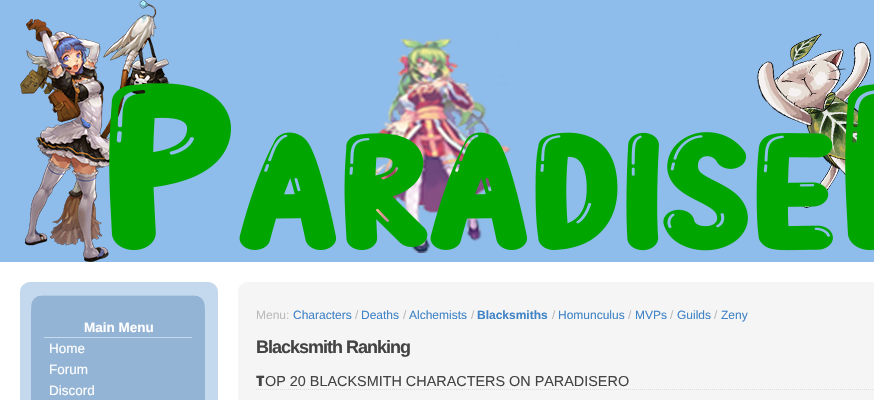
void draw(SkCanvas* canvas) {
	SkPaint fill;
	fill.setAntiAlias(true);
	auto makeFont = [&](const char* family, int weight, float size, bool italic = false) {
		SkFontStyle style(weight, SkFontStyle::kNormal_Width,
			italic ? SkFontStyle::kItalic_Slant : SkFontStyle::kUpright_Slant);
		SkFont result(fontMgr->matchFamilyStyle(family, style), size);
		result.setSubpixel(true);
		return result;
	};
	auto text = [&](const char* s, float x, float y, const SkFont& font) {
		canvas->drawString(s, x, y, font, fill);
	};
	auto spacedText = [&](const char* s, float x, float y, const SkFont& font, const SkPaint& ink, float letter, float word) {
		std::vector<SkGlyphID> glyphs(font.countText(s, strlen(s), SkTextEncoding::kUTF8));
		std::vector<float> xs(glyphs.size());
		font.textToGlyphs(s, strlen(s), SkTextEncoding::kUTF8, glyphs);
		font.getXPos(glyphs, xs, x);
		float extra = 0;
		for (size_t i = 0; i < glyphs.size(); i++) {
			xs[i] += extra;
			extra += letter + word * (glyphs[i] == font.unicharToGlyph(' '));
		}
		canvas->drawTextBlob(SkTextBlob::MakeFromPosHGlyphs(glyphs, xs, y, font), 0, 0, ink);
	};
	auto box = [&](float l, float t, float r, float b) {
		canvas->drawRect(SkRect::MakeLTRB(l, t, r, b), fill);
	};
	auto picture = [&](const char* path, float l, float t, float r, float b) {
		auto image = SkImages::DeferredFromEncodedData(SkData::MakeFromFileName(path));
		canvas->drawImageRect(image, SkRect::MakeLTRB(l, t, r, b), SkSamplingOptions());
	};
	canvas->clear(0xFFFFFFFF);
	fill.setColor(0xFF8EBCEB);
	box(0, 0, 874, 262);
	picture("image0.png", 20, 0, 874, 262);
	picture("image1.png", 20, 282, 218, 309);
	fill.setColor(0xFF94B4D5);
	box(31, 309, 205, 400);
	fill.setColor(0xFFC4D9EE);
	box(205, 309, 218, 400);
	box(20, 309, 31, 400);
	box(44, 337, 192, 338);
	picture("image2.png", 238, 282, 256, 308);
	fill.setColor(0xFFF5F5F5);
	box(256, 282, 874, 308);
	box(238, 308, 874, 400);
	fill.setStyle(SkPaint::kStroke_Style);
	fill.setStrokeWidth(1);
	fill.setColor(0xFFDDDDDD);
	fill.setPathEffect(SkDashPathEffect::Make({{1, 1}}, 0));
	canvas->drawPath(SkPathBuilder().moveTo(256, 389.5f).lineTo(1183, 389.5f).detach(), fill);
	fill.setPathEffect(nullptr);
	auto font1 = makeFont("Liberation Sans", 700, 13.5f);
	fill.setStyle(SkPaint::kFill_Style);
	fill.setColor(0xFFFFFFFF);
	text("Main Menu", 84, 332, font1);
	auto font2 = makeFont("Liberation Sans", 400, 13.5f);
	text("Home", 49, 353, font2);
	text("Forum", 49, 374, font2);
	text("Discord", 49, 395, font2);
	auto font3 = makeFont("Liberation Sans", 400, 12);
	fill.setColor(0xFFBBBBBB);
	text("Menu:", 256, 319, font3);
	fill.setColor(0xFF4083C6);
	text("Characters", 293, 319, font3);
	fill.setColor(0xFFBBBBBB);
	text("/", 355, 319, font3);
	fill.setColor(0xFF4083C6);
	text("Deaths", 361, 319, font3);
	fill.setColor(0xFFBBBBBB);
	text("/", 403, 319, font3);
	fill.setColor(0xFF4083C6);
	text("Alchemists", 409, 319, font3);
	fill.setColor(0xFFBBBBBB);
	text("/", 471, 319, font3);
	auto font4 = makeFont("Liberation Sans", 700, 12);
	fill.setColor(0xFF4083C6);
	text("Blacksmiths", 477, 319, font4);
	fill.setColor(0xFFBBBBBB);
	text("/", 552, 319, font3);
	fill.setColor(0xFF4083C6);
	text("Homunculus", 558, 319, font3);
	fill.setColor(0xFFBBBBBB);
	text("/", 628, 319, font3);
	fill.setColor(0xFF4083C6);
	text("MVPs", 635, 319, font3);
	fill.setColor(0xFFBBBBBB);
	text("/", 670, 319, font3);
	fill.setColor(0xFF4083C6);
	text("Guilds", 677, 319, font3);
	fill.setColor(0xFFBBBBBB);
	text("/", 714, 319, font3);
	fill.setColor(0xFF4083C6);
	text("Zeny", 721, 319, font3);
	auto font5 = makeFont("Liberation Sans", 700, 18);
	fill.setColor(0xFF444444);
	spacedText("Blacksmith Ranking", 256, 353, font5, fill, -1, 0);
	auto font6 = makeFont("Noto Sans", 900, 14.4f);
	text("T", 256, 386, font6);
	auto font7 = makeFont("Liberation Sans", 400, 14.4f);
	text("OP 20 BLACKSMITH CHARACTERS ON PARADISERO", 265, 386, font7);
}
